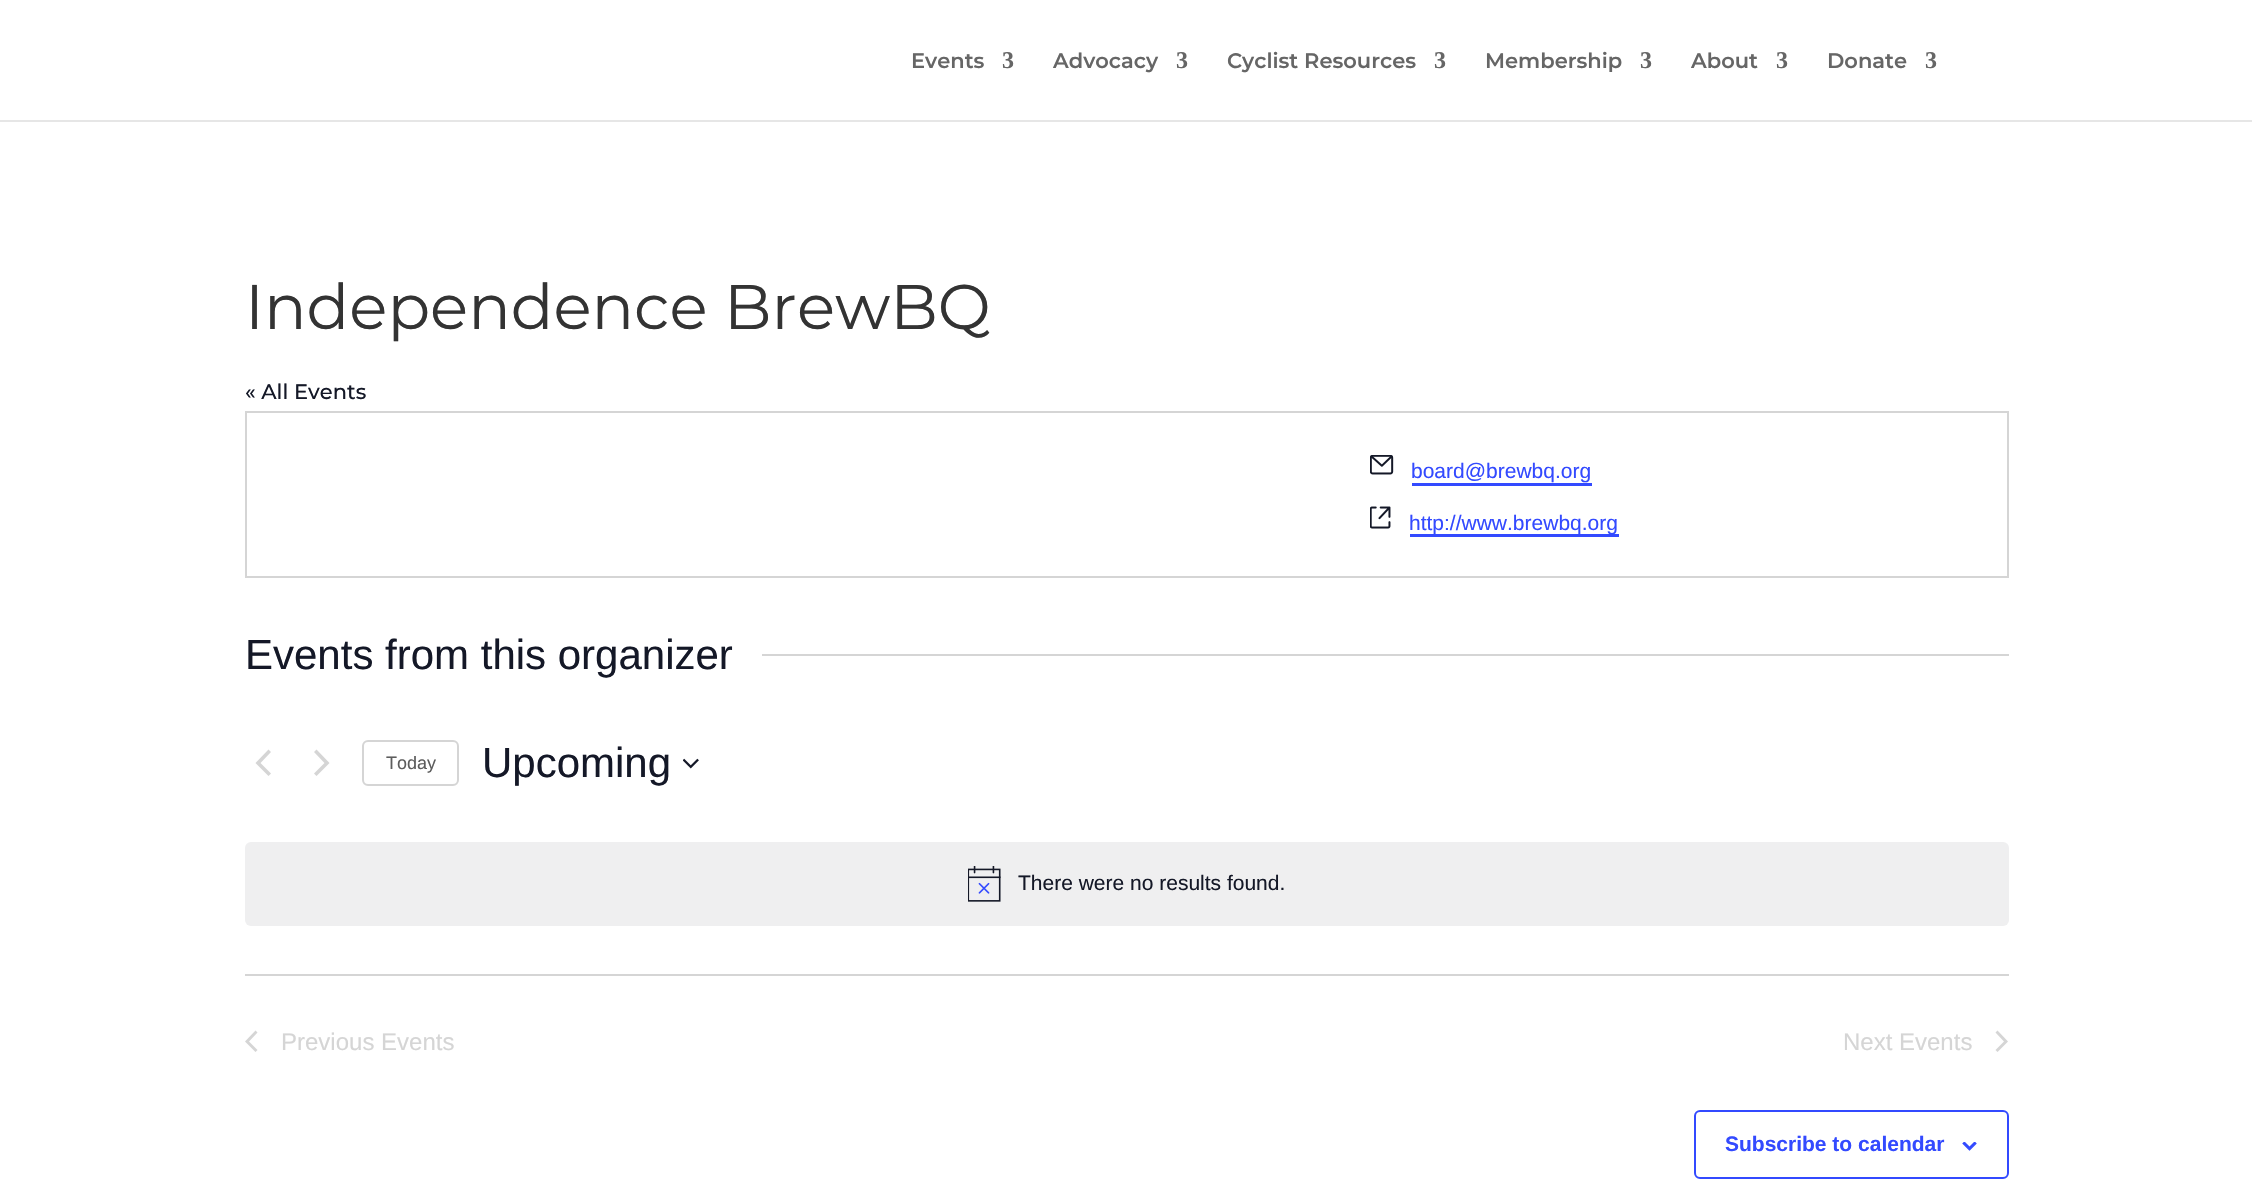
void draw(SkCanvas* canvas) {
	SkPaint fill;
	fill.setAntiAlias(true);
	auto makeFont = [&](const char* family, int weight, float size, bool italic = false) {
		SkFontStyle style(weight, SkFontStyle::kNormal_Width,
			italic ? SkFontStyle::kItalic_Slant : SkFontStyle::kUpright_Slant);
		SkFont result(fontMgr->matchFamilyStyle(family, style), size);
		result.setSubpixel(true);
		return result;
	};
	auto text = [&](const char* s, float x, float y, const SkFont& font) {
		canvas->drawString(s, x, y, font, fill);
	};
	auto box = [&](float l, float t, float r, float b) {
		canvas->drawRect(SkRect::MakeLTRB(l, t, r, b), fill);
	};
	auto roundBox = [&](float l, float t, float r, float b, float radius) {
		canvas->drawRoundRect(SkRect::MakeLTRB(l, t, r, b), radius, radius, fill);
	};
	auto picture = [&](const char* path, float l, float t, float r, float b) {
		auto image = SkImages::DeferredFromEncodedData(SkData::MakeFromFileName(path));
		canvas->drawImageRect(image, SkRect::MakeLTRB(l, t, r, b), SkSamplingOptions());
	};
	canvas->clear(0xFFFFFFFF);
	fill.setColor(0xFFE6E6E6);
	box(0, 120, 2252, 122);
	fill.setStyle(SkPaint::kStroke_Style);
	fill.setStrokeWidth(2);
	fill.setColor(0xFFD5D5D5);
	canvas->drawRect(SkRect::MakeLTRB(246, 412, 2008, 577), fill);
	picture("image0.png", 1370, 455, 1394, 475);
	fill.setStyle(SkPaint::kFill_Style);
	fill.setColor(0xFF334AFF);
	box(1412, 483, 1592, 486);
	picture("image1.png", 1370, 506, 1391, 529);
	box(1410, 534, 1619, 537);
	fill.setColor(0xFFD5D5D5);
	box(762, 654, 2009, 656);
	canvas->drawPath(SkPathBuilder().moveTo(271, 773.5f).lineTo(268.5f, 776).lineTo(255.5f, 763).lineTo(268.5f, 749.5f).lineTo(271, 752).lineTo(260.5f, 763).close().detach(), fill);
	canvas->drawPath(SkPathBuilder().moveTo(314, 752).lineTo(316.5f, 749.5f).lineTo(329.5f, 763).lineTo(316.5f, 776).lineTo(314, 773.5f).lineTo(324.5f, 763).close().detach(), fill);
	fill.setStyle(SkPaint::kStroke_Style);
	canvas->drawRoundRect(SkRect::MakeLTRB(363, 741, 458, 785), 5, 5, fill);
	picture("image2.png", 683, 758, 699, 769);
	fill.setStyle(SkPaint::kFill_Style);
	fill.setColor(0xFFEFEFF0);
	roundBox(245, 842, 2009, 926, 6);
	picture("image3.png", 968, 866, 1001, 902);
	fill.setColor(0xFFD5D5D5);
	box(245, 974, 2009, 976);
	canvas->drawPath(SkPathBuilder().moveTo(257.5f, 1050).lineTo(255.5f, 1052).lineTo(245, 1041.5f).lineTo(255.5f, 1030.5f).lineTo(257.5f, 1032.5f).lineTo(249, 1041.5f).close().detach(), fill);
	canvas->drawPath(SkPathBuilder().moveTo(1995.5f, 1032.5f).lineTo(1997.5f, 1030.5f).lineTo(2008, 1041.5f).lineTo(1997.5f, 1052).lineTo(1995.5f, 1050).lineTo(2004, 1041.5f).close().detach(), fill);
	fill.setStyle(SkPaint::kStroke_Style);
	fill.setColor(0xFF334AFF);
	canvas->drawRoundRect(SkRect::MakeLTRB(1695, 1111, 2008, 1178), 5, 5, fill);
	picture("image4.png", 1962, 1142, 1977, 1151);
	auto font1 = makeFont("Montserrat", 600, 21);
	fill.setStyle(SkPaint::kFill_Style);
	fill.setColor(0xFF666666);
	text("Events", 911, 68, font1);
	auto font2 = makeFont("Liberation Serif", 700, 24);
	text("3", 1002, 68, font2);
	text("Advocacy", 1053, 68, font1);
	text("3", 1176, 68, font2);
	text("Cyclist Resources", 1227, 68, font1);
	text("3", 1434, 68, font2);
	text("Membership", 1485, 68, font1);
	text("3", 1640, 68, font2);
	text("About", 1691, 68, font1);
	text("3", 1776, 68, font2);
	text("Donate", 1827, 68, font1);
	text("3", 1925, 68, font2);
	auto font3 = makeFont("Montserrat", 400, 63);
	fill.setColor(0xFF333333);
	text("Independence BrewBQ", 245, 329, font3);
	auto font4 = makeFont("Montserrat", 500, 21);
	fill.setColor(0xFF141827);
	text("« All Events", 245, 399, font4);
	auto font5 = makeFont("Liberation Sans", 400, 21);
	fill.setColor(0xFF334AFF);
	text("board@brewbq.org", 1411, 478, font5);
	text("http://www.brewbq.org", 1409, 530, font5);
	auto font6 = makeFont("Liberation Sans", 400, 42);
	fill.setColor(0xFF141827);
	text("Events from this organizer", 245, 669, font6);
	auto font7 = makeFont("Liberation Sans", 400, 18);
	fill.setColor(0xFF5D5D5D);
	text("Today", 386, 769, font7);
	fill.setColor(0xFF141827);
	text("Upcoming", 482, 777, font6);
	text("There were no results found.", 1018, 890, font5);
	auto font8 = makeFont("Liberation Sans", 400, 24);
	fill.setColor(0xFFD5D5D5);
	text("Previous Events", 281, 1050, font8);
	text("Next Events", 1843, 1050, font8);
	auto font9 = makeFont("Liberation Sans", 700, 21);
	fill.setColor(0xFF334AFF);
	text("Subscribe to calendar", 1725, 1151, font9);
}
